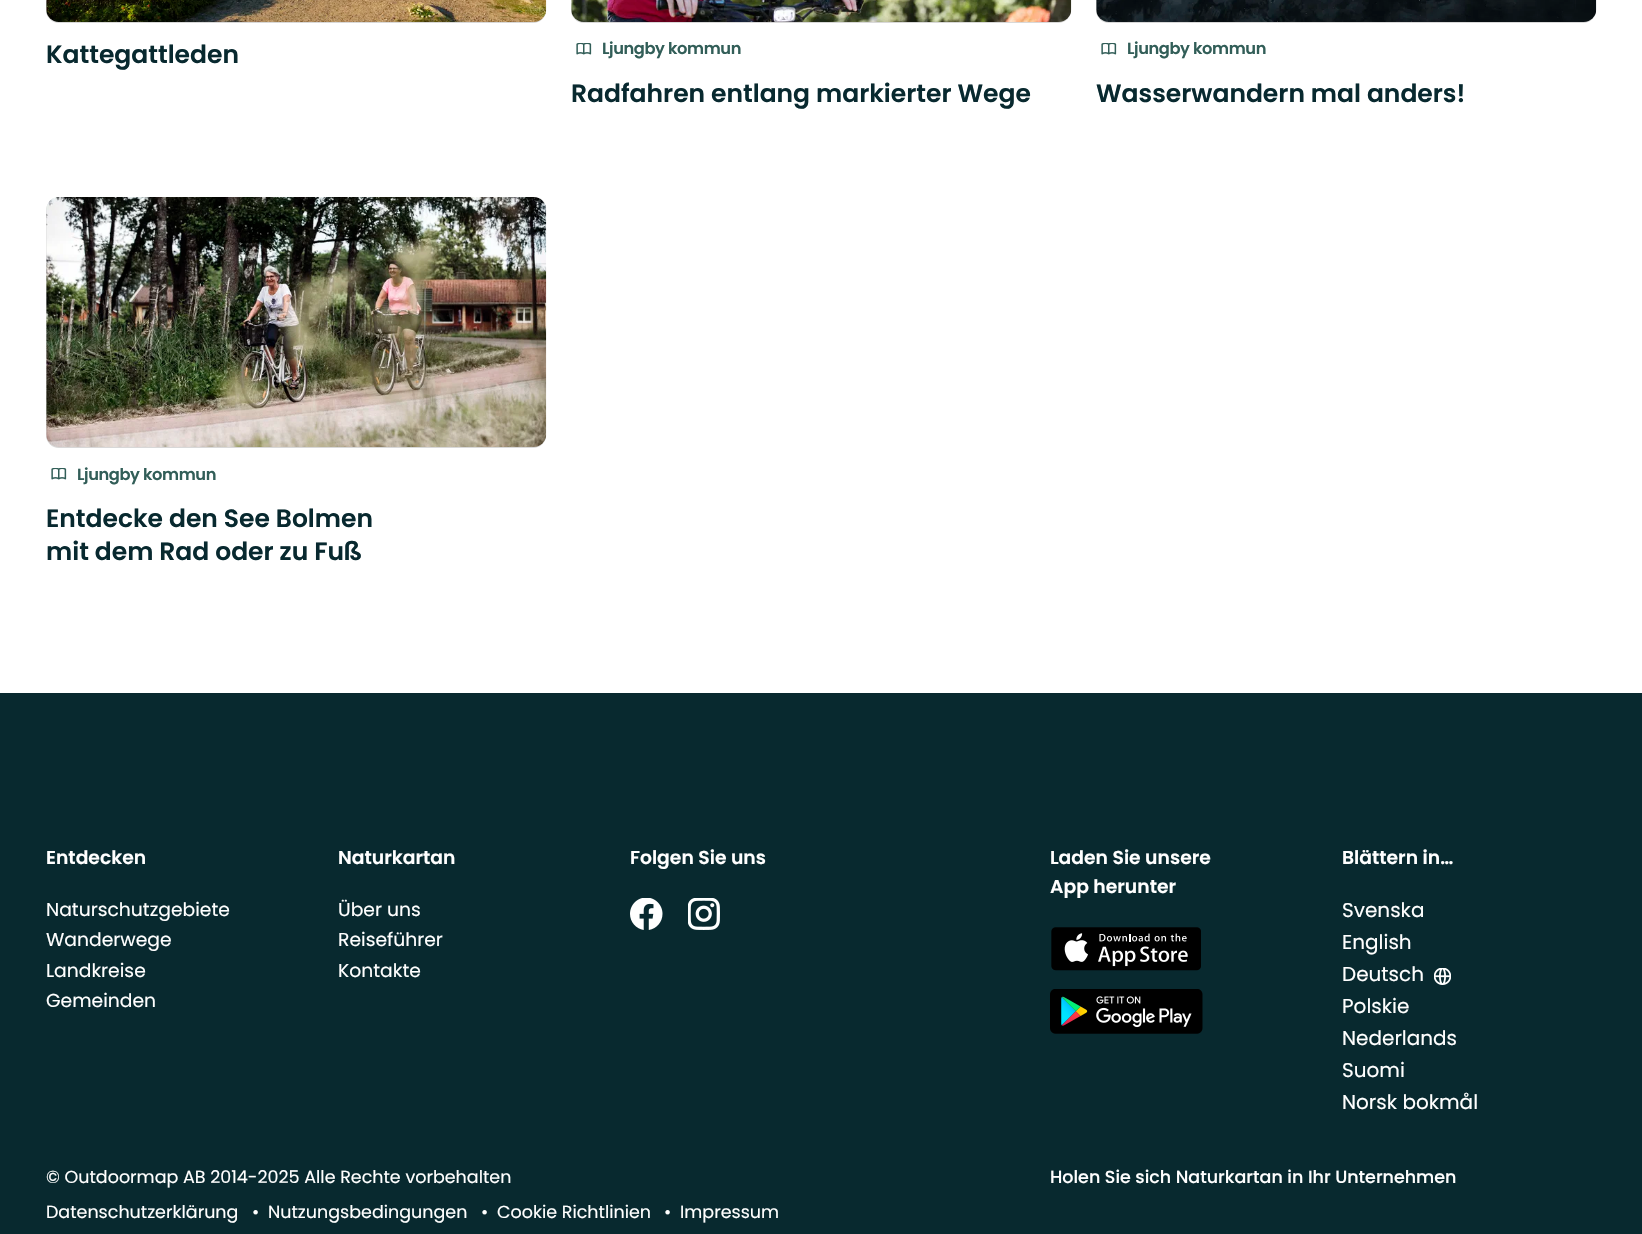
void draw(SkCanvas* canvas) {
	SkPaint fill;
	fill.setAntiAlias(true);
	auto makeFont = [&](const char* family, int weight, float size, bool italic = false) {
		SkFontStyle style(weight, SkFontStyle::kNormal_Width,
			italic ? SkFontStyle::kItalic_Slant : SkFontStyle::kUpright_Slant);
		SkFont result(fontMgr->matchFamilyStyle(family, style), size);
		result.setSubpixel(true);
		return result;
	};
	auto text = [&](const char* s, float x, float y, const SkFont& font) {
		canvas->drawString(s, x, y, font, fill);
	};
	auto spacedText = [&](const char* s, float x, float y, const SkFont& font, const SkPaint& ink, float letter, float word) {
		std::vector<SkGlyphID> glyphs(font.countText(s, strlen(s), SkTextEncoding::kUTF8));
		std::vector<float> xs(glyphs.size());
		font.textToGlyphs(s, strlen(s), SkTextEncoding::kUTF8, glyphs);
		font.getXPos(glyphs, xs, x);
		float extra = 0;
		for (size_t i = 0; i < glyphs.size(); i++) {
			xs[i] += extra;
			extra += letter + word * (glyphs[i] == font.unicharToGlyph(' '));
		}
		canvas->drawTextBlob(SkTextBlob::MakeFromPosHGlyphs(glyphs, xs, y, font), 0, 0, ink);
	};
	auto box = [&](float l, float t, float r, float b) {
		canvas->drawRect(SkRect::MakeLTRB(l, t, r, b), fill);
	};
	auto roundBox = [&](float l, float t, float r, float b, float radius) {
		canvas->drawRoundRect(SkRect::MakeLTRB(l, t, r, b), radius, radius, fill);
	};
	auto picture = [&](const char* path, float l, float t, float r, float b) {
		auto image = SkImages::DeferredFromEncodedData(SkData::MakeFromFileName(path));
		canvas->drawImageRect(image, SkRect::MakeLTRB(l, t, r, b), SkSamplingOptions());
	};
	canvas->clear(0xFFFFFFFF);
	fill.setColor(0xFFD8D8D8);
	roundBox(46, -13, 546, 23, 13);
	picture("image0.png", 46, 0, 547, 22);
	roundBox(571, -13, 1071, 23, 13);
	picture("image1.png", 571, 0, 1072, 22);
	picture("image2.png", 576, 43, 592, 55);
	roundBox(1096, -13, 1596, 23, 13);
	picture("image3.png", 1096, 0, 1597, 22);
	picture("image2.png", 1101, 43, 1117, 55);
	roundBox(46, 198, 546, 448, 13);
	picture("image4.png", 46, 197, 547, 447);
	picture("image2.png", 51, 468, 67, 480);
	fill.setColor(0xFF08292F);
	box(0, 693, 1642, 1234);
	picture("image5.png", 630, 898, 663, 930);
	picture("image6.png", 688, 898, 720, 930);
	picture("image7.png", 1051, 927, 1201, 971);
	picture("image8.png", 1050, 989, 1203, 1034);
	picture("image9.png", 1434, 968, 1451, 985);
	auto font1 = makeFont("Poppins", 600, 25);
	text("Kattegattleden", 46, 63, font1);
	auto font2 = makeFont("Poppins", 600, 16.25f);
	fill.setColor(0xFF325E58);
	spacedText("Ljungby kommun", 602, 54, font2, fill, -0.4f, 0);
	fill.setColor(0xFF08292F);
	text("Radfahren entlang markierter Wege", 571, 102, font1);
	fill.setColor(0xFF325E58);
	spacedText("Ljungby kommun", 1127, 54, font2, fill, -0.4f, 0);
	fill.setColor(0xFF08292F);
	text("Wasserwandern mal anders!", 1096, 102, font1);
	fill.setColor(0xFF325E58);
	spacedText("Ljungby kommun", 77, 480, font2, fill, -0.4f, 0);
	fill.setColor(0xFF08292F);
	text("Entdecke den See Bolmen", 46, 527, font1);
	text("mit dem Rad oder zu Fuß", 46, 560, font1);
	auto font3 = makeFont("Poppins", 600, 18.75f);
	fill.setColor(0xFFFFFFFF);
	text("Entdecken", 46, 864, font3);
	auto font4 = makeFont("Poppins", 400, 18.75f);
	text("Naturschutzgebiete", 46, 916, font4);
	text("Wanderwege", 46, 946, font4);
	text("Landkreise", 46, 977, font4);
	text("Gemeinden", 46, 1007, font4);
	text("Naturkartan", 338, 864, font3);
	text("Über uns", 338, 916, font4);
	text("Reiseführer", 338, 946, font4);
	text("Kontakte", 338, 977, font4);
	text("Folgen Sie uns", 630, 864, font3);
	text("Laden Sie unsere", 1050, 864, font3);
	text("App herunter", 1050, 893, font3);
	text("Blättern in…", 1342, 864, font3);
	auto font5 = makeFont("Poppins", 400, 20);
	text("Svenska", 1342, 917, font5);
	text("English", 1342, 949, font5);
	text("Deutsch", 1342, 981, font5);
	text("Polskie", 1342, 1013, font5);
	text("Nederlands", 1342, 1045, font5);
	text("Suomi", 1342, 1077, font5);
	text("Norsk bokmål", 1342, 1109, font5);
	auto font6 = makeFont("Poppins", 400, 17.5f);
	text("© Outdoormap AB 2014-2025 Alle Rechte vorbehalten", 46, 1183, font6);
	text("Datenschutzerklärung", 46, 1218, font6);
	text("•", 252, 1218, font6);
	text("Nutzungsbedingungen", 268, 1218, font6);
	text("•", 481, 1218, font6);
	text("Cookie Richtlinien", 497, 1218, font6);
	text("•", 664, 1218, font6);
	text("Impressum", 680, 1218, font6);
	auto font7 = makeFont("Poppins", 500, 17.5f);
	text("Holen Sie sich Naturkartan in Ihr Unternehmen", 1050, 1183, font7);
}
